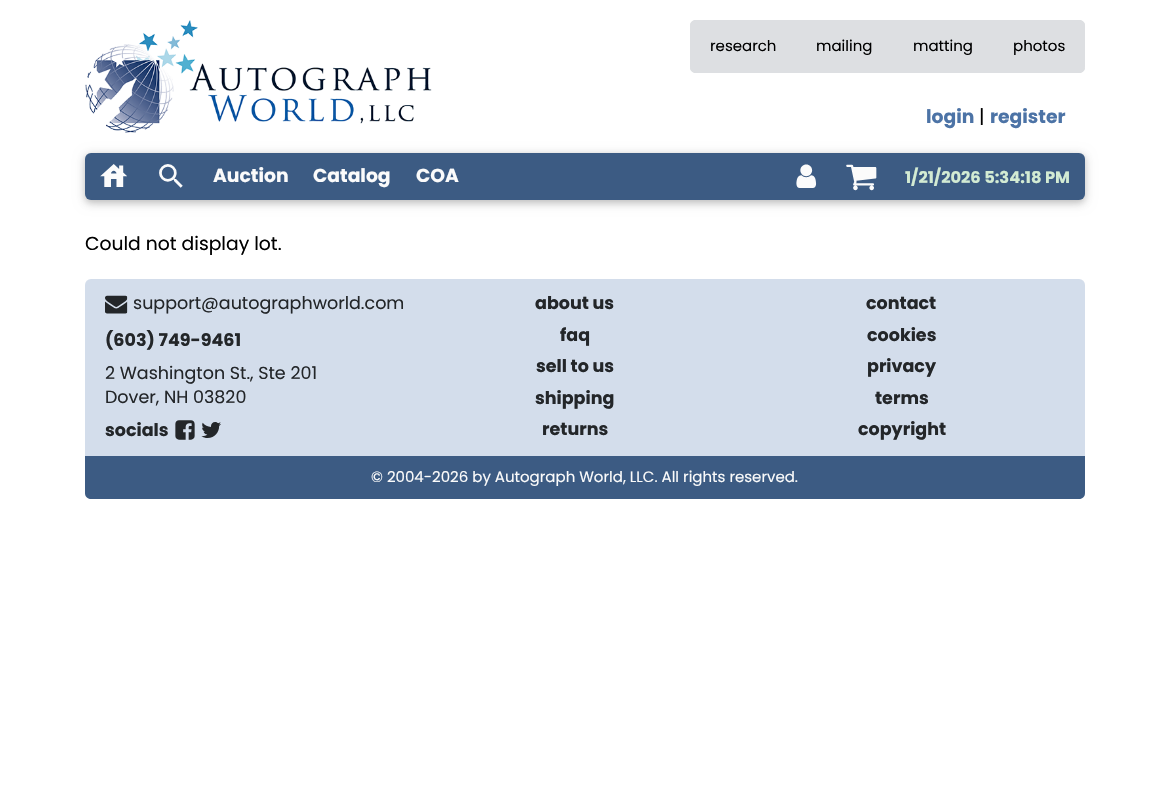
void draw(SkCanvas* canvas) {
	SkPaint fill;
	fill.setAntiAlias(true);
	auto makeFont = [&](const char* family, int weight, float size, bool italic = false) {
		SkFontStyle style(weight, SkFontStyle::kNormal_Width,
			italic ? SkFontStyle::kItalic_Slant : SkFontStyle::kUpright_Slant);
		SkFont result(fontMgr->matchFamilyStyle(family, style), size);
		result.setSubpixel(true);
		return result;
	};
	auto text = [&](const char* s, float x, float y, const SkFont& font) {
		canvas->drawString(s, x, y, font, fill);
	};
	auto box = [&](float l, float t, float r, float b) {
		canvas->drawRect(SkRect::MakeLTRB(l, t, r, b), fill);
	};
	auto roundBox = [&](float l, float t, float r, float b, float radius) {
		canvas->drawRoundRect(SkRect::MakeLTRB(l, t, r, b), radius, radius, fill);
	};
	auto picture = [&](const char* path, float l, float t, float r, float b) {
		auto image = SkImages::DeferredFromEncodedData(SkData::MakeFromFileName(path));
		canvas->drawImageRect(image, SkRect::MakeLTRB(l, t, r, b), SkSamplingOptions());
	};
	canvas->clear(0xFFFFFFFF);
	picture("image0.png", 85, 20, 432, 133);
	fill.setColor(0xFFDDDFE2);
	canvas->drawPath(SkPathBuilder().moveTo(696, 20).lineTo(796, 20).lineTo(796, 73).lineTo(696, 73).cubicTo(692.5f, 73, 690, 70.5f, 690, 67).lineTo(690, 26).cubicTo(690, 22.5f, 692.5f, 20, 696, 20).close().detach(), fill);
	canvas->save();
	canvas->clipPath(SkPathBuilder().moveTo(696, 20).lineTo(1079, 20).cubicTo(1082.5f, 20, 1085, 22.5f, 1085, 26).lineTo(1085, 67).cubicTo(1085, 70.5f, 1082.5f, 73, 1079, 73).lineTo(696, 73).cubicTo(692.5f, 73, 690, 70.5f, 690, 67).lineTo(690, 26).cubicTo(690, 22.5f, 692.5f, 20, 696, 20).close().detach(), true);
	box(690, 20, 796, 25);
	box(690, 68, 796, 73);
	canvas->restore();
	box(796, 20, 993, 73);
	canvas->drawPath(SkPathBuilder().moveTo(993, 20).lineTo(1079, 20).cubicTo(1082.5f, 20, 1085, 22.5f, 1085, 26).lineTo(1085, 67).cubicTo(1085, 70.5f, 1082.5f, 73, 1079, 73).lineTo(993, 73).close().detach(), fill);
	canvas->save();
	canvas->clipPath(SkPathBuilder().moveTo(696, 20).lineTo(1079, 20).cubicTo(1082.5f, 20, 1085, 22.5f, 1085, 26).lineTo(1085, 67).cubicTo(1085, 70.5f, 1082.5f, 73, 1079, 73).lineTo(696, 73).cubicTo(692.5f, 73, 690, 70.5f, 690, 67).lineTo(690, 26).cubicTo(690, 22.5f, 692.5f, 20, 696, 20).close().detach(), true);
	box(993, 20, 1085, 25);
	box(993, 68, 1085, 73);
	canvas->restore();
	fill.setColor(0x1F000000);
	fill.setMaskFilter(SkMaskFilter::MakeBlur(kNormal_SkBlurStyle, 6));
	canvas->drawRoundRect(SkRect::MakeLTRB(85, 155, 1085, 203), 6, 6, fill);
	fill.setMaskFilter(nullptr);
	fill.setColor(0x29000000);
	fill.setMaskFilter(SkMaskFilter::MakeBlur(kNormal_SkBlurStyle, 3));
	canvas->drawRoundRect(SkRect::MakeLTRB(85, 155, 1085, 203), 6, 6, fill);
	fill.setMaskFilter(nullptr);
	fill.setColor(0xFF3C5B83);
	roundBox(85, 153, 1085, 200, 6);
	picture("image1.png", 100, 164, 127, 187);
	picture("image2.png", 159, 164, 183, 188);
	picture("image3.png", 796, 164, 817, 188);
	picture("image4.png", 846, 164, 877, 191);
	fill.setColor(0xFFD3DDEB);
	roundBox(85, 279, 1085, 499, 6);
	picture("image5.png", 105, 295, 128, 314);
	picture("image6.png", 175, 420, 195, 440);
	picture("image7.png", 201, 422, 221, 438);
	fill.setColor(0xFF3C5B83);
	canvas->drawPath(SkPathBuilder().moveTo(85, 456).lineTo(1085, 456).lineTo(1085, 493).cubicTo(1085, 496.5f, 1082.5f, 499, 1079, 499).lineTo(91, 499).cubicTo(87.5f, 499, 85, 496.5f, 85, 493).close().detach(), fill);
	auto font1 = makeFont("Poppins", 400, 15);
	fill.setColor(0xFF000000);
	text("research", 710, 51, font1);
	text("mailing", 816, 51, font1);
	text("matting", 913, 51, font1);
	text("photos", 1013, 51, font1);
	auto font2 = makeFont("Poppins", 700, 18.75f);
	fill.setColor(0xFF4C73A6);
	text("login", 926, 123, font2);
	auto font3 = makeFont("Poppins", 400, 18.75f);
	fill.setColor(0xFF000000);
	text("|", 979, 123, font3);
	fill.setColor(0xFF4C73A6);
	text("register", 990, 123, font2);
	fill.setColor(0xFFFBFBFB);
	text("Auction", 213, 182, font2);
	text("Catalog", 313, 182, font2);
	text("COA", 416, 182, font2);
	auto font4 = makeFont("Poppins", 700, 16.25f);
	fill.setColor(0xFFD3EBD3);
	text("1/21/2026 5:34:18 PM", 905, 183, font4);
	fill.setColor(0xFF000000);
	text("Could not display lot.", 85, 250, font3);
	auto font5 = makeFont("Poppins", 400, 17.5f);
	fill.setColor(0xFF232629);
	text("support@autographworld.com", 133, 309, font5);
	auto font6 = makeFont("Poppins", 700, 17.5f);
	text("(603) 749-9461", 105, 346, font6);
	text("2 Washington St., Ste 201", 105, 379, font5);
	text("Dover, NH 03820", 105, 403, font5);
	text("socials", 105, 436, font6);
	text("about us", 535, 309, font6);
	text("faq", 560, 341, font6);
	text("sell to us", 536, 372, font6);
	text("shipping", 535, 404, font6);
	text("returns", 542, 435, font6);
	text("contact", 866, 309, font6);
	text("cookies", 867, 341, font6);
	text("privacy", 867, 372, font6);
	text("terms", 875, 404, font6);
	text("copyright", 858, 435, font6);
	fill.setColor(0xFFFBFBFB);
	text("© 2004-2026 by Autograph World, LLC. All rights reserved.", 371, 482, font1);
}
